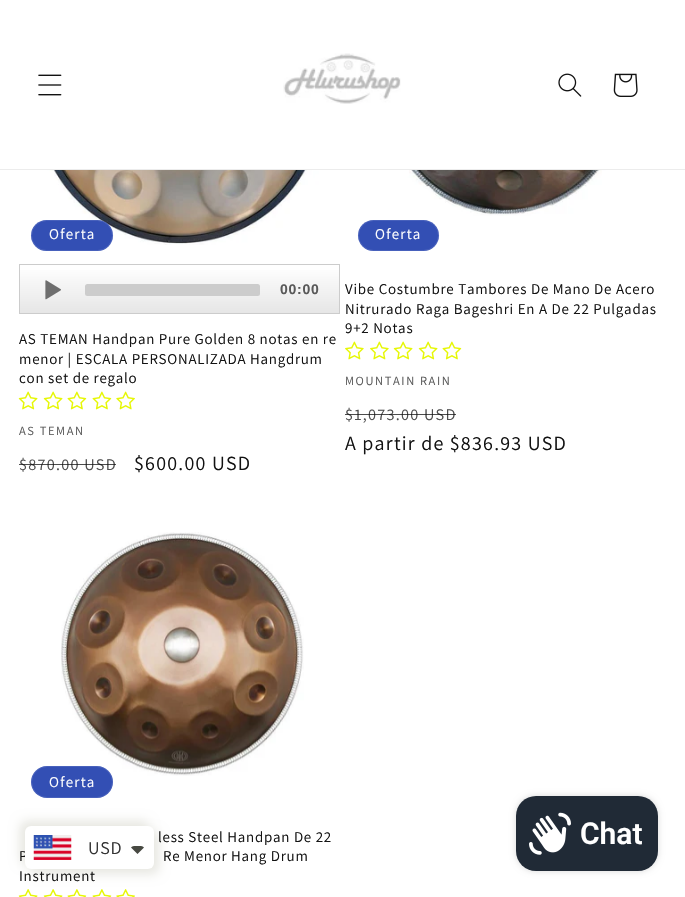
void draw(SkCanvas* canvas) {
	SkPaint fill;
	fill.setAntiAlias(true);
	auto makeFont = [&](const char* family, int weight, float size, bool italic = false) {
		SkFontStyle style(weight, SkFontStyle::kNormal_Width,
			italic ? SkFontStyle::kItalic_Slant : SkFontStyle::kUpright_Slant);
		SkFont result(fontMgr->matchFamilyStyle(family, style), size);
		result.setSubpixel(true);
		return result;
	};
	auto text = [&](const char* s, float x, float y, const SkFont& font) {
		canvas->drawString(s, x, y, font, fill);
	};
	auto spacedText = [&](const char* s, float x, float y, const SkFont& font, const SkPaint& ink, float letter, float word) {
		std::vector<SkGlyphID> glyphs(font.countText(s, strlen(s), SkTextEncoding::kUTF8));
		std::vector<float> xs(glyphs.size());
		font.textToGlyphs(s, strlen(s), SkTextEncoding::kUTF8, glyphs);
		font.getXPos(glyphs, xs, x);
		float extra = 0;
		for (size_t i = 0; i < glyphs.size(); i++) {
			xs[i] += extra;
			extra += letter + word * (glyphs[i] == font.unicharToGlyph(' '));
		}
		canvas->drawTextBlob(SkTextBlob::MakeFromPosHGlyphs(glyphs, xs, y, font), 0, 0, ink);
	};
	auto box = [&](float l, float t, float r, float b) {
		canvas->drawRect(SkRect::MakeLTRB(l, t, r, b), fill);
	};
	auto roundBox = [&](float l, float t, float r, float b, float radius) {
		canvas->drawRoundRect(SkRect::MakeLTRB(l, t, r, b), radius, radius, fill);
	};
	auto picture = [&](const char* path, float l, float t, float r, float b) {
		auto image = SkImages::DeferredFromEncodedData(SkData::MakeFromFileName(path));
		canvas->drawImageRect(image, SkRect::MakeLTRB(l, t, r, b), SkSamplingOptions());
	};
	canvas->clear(0xFFFFFFFF);
	fill.setColor(0xFFECECEC);
	box(0, 169, 685, 170);
	picture("image0.png", 38, 74, 62, 96);
	picture("image1.png", 283, 53, 401, 104);
	picture("image2.png", 558, 73, 582, 97);
	picture("image3.png", 613, 73, 638, 97);
	picture("image4.png", 33, 170, 326, 245);
	fill.setColor(0xFF334FB4);
	roundBox(31, 220, 113, 251, 15.5f);
	fill.setStyle(SkPaint::kStroke_Style);
	fill.setStrokeWidth(1);
	fill.setColor(0x1AFFFFFF);
	canvas->drawRoundRect(SkRect::MakeLTRB(31.5f, 220.5f, 112.5f, 250.5f), 15, 15, fill);
	fill.setStyle(SkPaint::kFill_Style);
	{
		const SkColor colors[] = {0xFFFFFFFF, 0xFFE6E6E6};
		const float stops[] = {0, 1};
		const SkPoint ends[] = {{179, 265}, {179, 313}};
		fill.setShader(SkGradientShader::MakeLinear(ends, colors, stops, 2, SkTileMode::kClamp));
		fill.setAlpha(255);
	}
	box(20, 270, 339, 313);
	fill.setStyle(SkPaint::kStroke_Style);
	fill.setShader(nullptr);
	fill.setColor(0xFFCCCCCC);
	canvas->drawRect(SkRect::MakeLTRB(19.5f, 264.5f, 339.5f, 313.5f), fill);
	picture("image5.png", 45, 280, 61, 300);
	fill.setStyle(SkPaint::kFill_Style);
	roundBox(85, 284, 260, 296, 2.5f);
	picture("image6.png", 18, 391, 38, 410);
	picture("image6.png", 43, 391, 63, 410);
	picture("image7.png", 67, 391, 87, 410);
	picture("image7.png", 92, 391, 112, 410);
	picture("image8.png", 116, 391, 135, 410);
	picture("image9.png", 383, 170, 627, 216);
	fill.setColor(0xFF334FB4);
	roundBox(358, 220, 439, 251, 15.5f);
	fill.setStyle(SkPaint::kStroke_Style);
	fill.setColor(0x1AFFFFFF);
	canvas->drawRoundRect(SkRect::MakeLTRB(358.5f, 220.5f, 438.5f, 250.5f), 15, 15, fill);
	picture("image10.png", 345, 341, 364, 360);
	picture("image10.png", 370, 341, 389, 360);
	picture("image6.png", 393, 341, 413, 360);
	picture("image6.png", 418, 341, 438, 360);
	picture("image7.png", 442, 341, 462, 360);
	picture("image11.png", 61, 532, 304, 776);
	fill.setStyle(SkPaint::kFill_Style);
	fill.setColor(0xFF334FB4);
	roundBox(31, 766, 113, 798, 16);
	fill.setStyle(SkPaint::kStroke_Style);
	fill.setColor(0x1AFFFFFF);
	canvas->drawRoundRect(SkRect::MakeLTRB(31.5f, 766.5f, 112.5f, 797.5f), 15.5f, 15.5f, fill);
	picture("image12.png", 18, 889, 38, 897);
	picture("image12.png", 43, 889, 63, 897);
	picture("image13.png", 67, 889, 87, 897);
	picture("image13.png", 92, 889, 112, 897);
	picture("image14.png", 116, 889, 135, 897);
	fill.setStyle(SkPaint::kFill_Style);
	fill.setColor(0x26000000);
	fill.setMaskFilter(SkMaskFilter::MakeBlur(kNormal_SkBlurStyle, 3));
	canvas->drawRoundRect(SkRect::MakeLTRB(516, 796, 658, 871), 20, 20, fill);
	fill.setMaskFilter(nullptr);
	fill.setColor(0xFF202A36);
	roundBox(516, 796, 658, 871, 20);
	picture("image15.png", 529, 812, 571, 855);
	fill.setColor(0xFFE8E8E2);
	fill.setMaskFilter(SkMaskFilter::MakeBlur(kNormal_SkBlurStyle, 5.5f));
	canvas->drawRoundRect(SkRect::MakeLTRB(20, 821, 149, 864), 6, 6, fill);
	fill.setMaskFilter(nullptr);
	fill.setMaskFilter(SkMaskFilter::MakeBlur(kNormal_SkBlurStyle, 5.5f));
	canvas->drawRoundRect(SkRect::MakeLTRB(30, 831, 159, 874), 6, 6, fill);
	fill.setMaskFilter(nullptr);
	auto font1 = makeFont("Assistant", 400, 15);
	fill.setColor(0xFFFFFFFF);
	spacedText("Oferta", 49, 239, font1, fill, 1.25f, 0);
	auto font2 = makeFont("Liberation Sans", 700, 14);
	fill.setColor(0xFF595959);
	spacedText("00:00", 280, 294, font2, fill, 0.75f, 0);
	fill.setColor(0xFF121212);
	spacedText("AS TEMAN Handpan Pure Golden 8 notas en re", 19, 344, font1, fill, 0.75f, 0);
	spacedText("menor | ESCALA PERSONALIZADA Hangdrum", 19, 364, font1, fill, 0.75f, 0);
	spacedText("con set de regalo", 19, 383, font1, fill, 0.75f, 0);
	auto font3 = makeFont("Assistant", 400, 12.5f);
	fill.setColor(0xFF595959);
	spacedText("AS TEMAN", 19, 435, font3, fill, 1.6f, 0);
	auto font4 = makeFont("Assistant", 400, 16.25f);
	fill.setColor(0xFF4D4D4D);
	spacedText("$870.00 USD", 19, 470, font4, fill, 1.25f, 0);
	fill.setColor(0xBF121212);
	box(19, 464, 116, 465);
	auto font5 = makeFont("Assistant", 400, 20);
	fill.setColor(0xFF121212);
	spacedText("$600.00 USD", 134, 470, font5, fill, 1.25f, 0);
	fill.setColor(0xFFFFFFFF);
	spacedText("Oferta", 375, 239, font1, fill, 1.25f, 0);
	fill.setColor(0xFF121212);
	spacedText("Vibe Costumbre Tambores De Mano De Acero", 345, 294, font1, fill, 0.75f, 0);
	spacedText("Nitrurado Raga Bageshri En A De 22 Pulgadas", 345, 314, font1, fill, 0.75f, 0);
	spacedText("9+2 Notas", 345, 333, font1, fill, 0.75f, 0);
	fill.setColor(0xFF595959);
	spacedText("MOUNTAIN RAIN", 345, 385, font3, fill, 1.6f, 0);
	fill.setColor(0xFF4D4D4D);
	spacedText("$1,073.00 USD", 345, 420, font4, fill, 1.25f, 0);
	fill.setColor(0xBF121212);
	box(345, 414, 456, 415);
	fill.setColor(0xFF121212);
	spacedText("A partir de $836.93 USD", 345, 450, font5, fill, 1.25f, 0);
	fill.setColor(0xFFFFFFFF);
	spacedText("Oferta", 49, 787, font1, fill, 1.25f, 0);
	fill.setColor(0xFF121212);
	spacedText("less Steel Handpan De 22", 158, 842, font1, fill, 0.75f, 0);
	spacedText("P", 19, 861, font1, fill, 0.75f, 0);
	spacedText("Re Menor Hang Drum", 163, 861, font1, fill, 0.75f, 0);
	spacedText("Instrument", 19, 881, font1, fill, 0.75f, 0);
	auto font6 = makeFont("Roboto", 600, 30);
	fill.setColor(0xFFFFFFFF);
	text("Chat", 580, 844, font6);
	roundBox(25, 826, 154, 869, 6);
	picture("image16.png", 33, 835, 72, 860);
	auto font7 = makeFont("Assistant", 400, 18);
	fill.setColor(0xFF333333);
	spacedText("USD", 88, 854, font7, fill, 0.75f, 0);
	fill.setColor(0xFF474942);
	canvas->drawPath(SkPathBuilder().moveTo(131, 847.5f).cubicTo(132.5f, 845.5f, 135.5f, 846, 137.5f, 846).cubicTo(139.5f, 846, 142.5f, 845.5f, 144, 847.5f).lineTo(137.5f, 854).close().detach(), fill);
}
